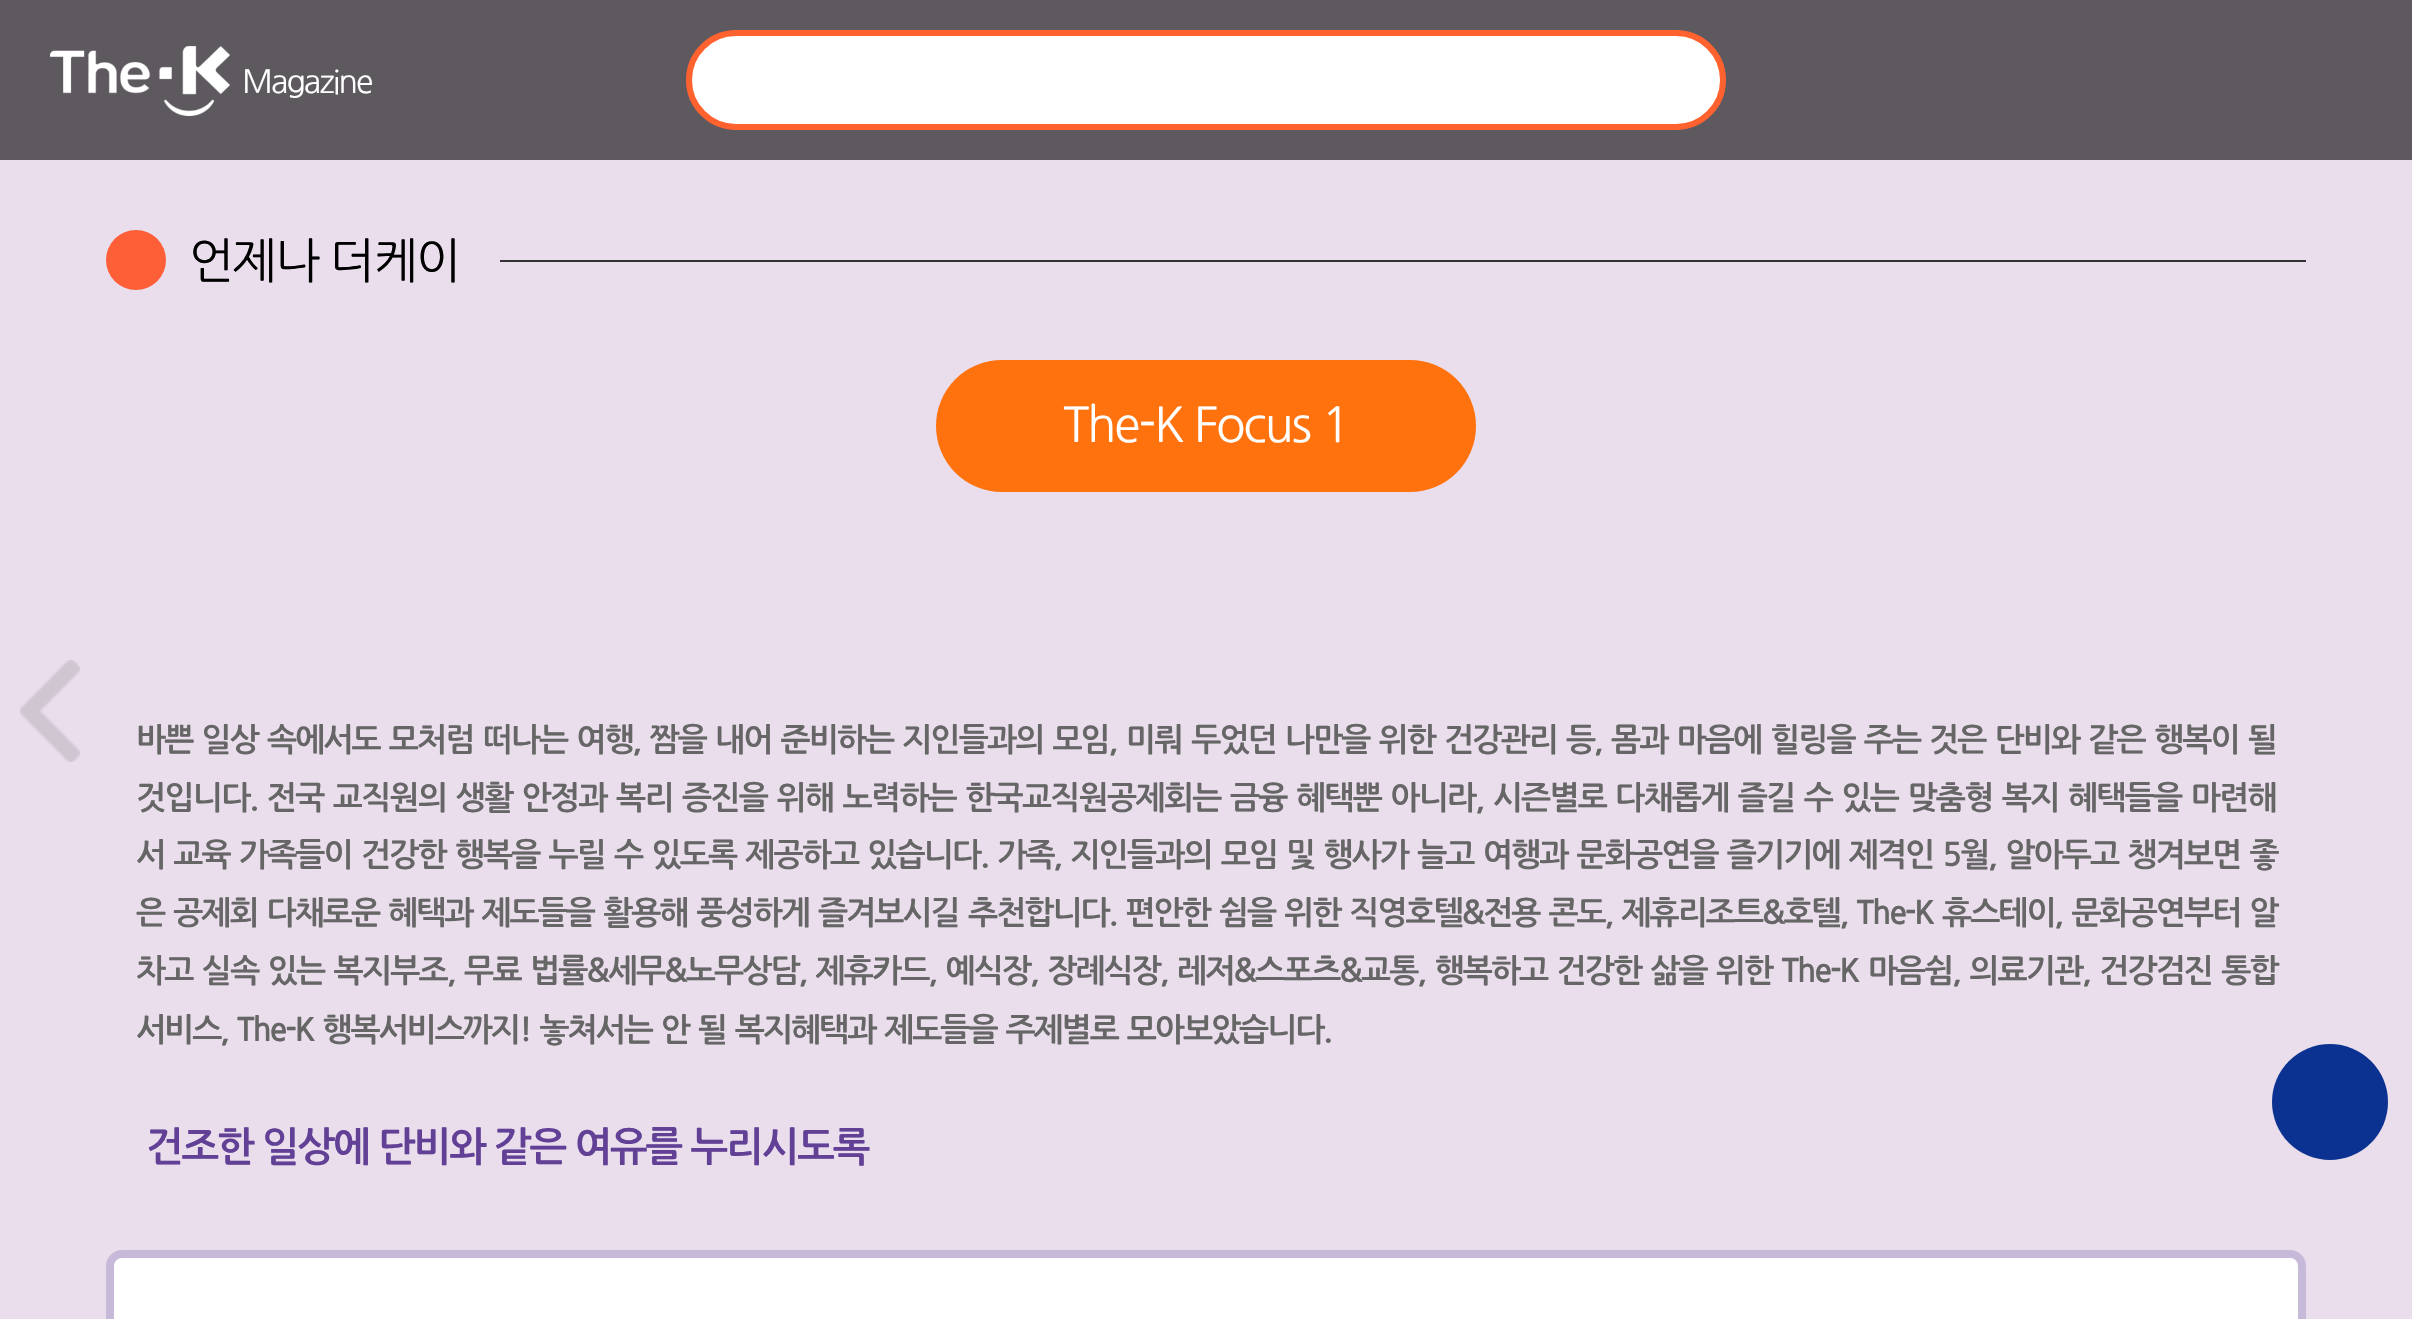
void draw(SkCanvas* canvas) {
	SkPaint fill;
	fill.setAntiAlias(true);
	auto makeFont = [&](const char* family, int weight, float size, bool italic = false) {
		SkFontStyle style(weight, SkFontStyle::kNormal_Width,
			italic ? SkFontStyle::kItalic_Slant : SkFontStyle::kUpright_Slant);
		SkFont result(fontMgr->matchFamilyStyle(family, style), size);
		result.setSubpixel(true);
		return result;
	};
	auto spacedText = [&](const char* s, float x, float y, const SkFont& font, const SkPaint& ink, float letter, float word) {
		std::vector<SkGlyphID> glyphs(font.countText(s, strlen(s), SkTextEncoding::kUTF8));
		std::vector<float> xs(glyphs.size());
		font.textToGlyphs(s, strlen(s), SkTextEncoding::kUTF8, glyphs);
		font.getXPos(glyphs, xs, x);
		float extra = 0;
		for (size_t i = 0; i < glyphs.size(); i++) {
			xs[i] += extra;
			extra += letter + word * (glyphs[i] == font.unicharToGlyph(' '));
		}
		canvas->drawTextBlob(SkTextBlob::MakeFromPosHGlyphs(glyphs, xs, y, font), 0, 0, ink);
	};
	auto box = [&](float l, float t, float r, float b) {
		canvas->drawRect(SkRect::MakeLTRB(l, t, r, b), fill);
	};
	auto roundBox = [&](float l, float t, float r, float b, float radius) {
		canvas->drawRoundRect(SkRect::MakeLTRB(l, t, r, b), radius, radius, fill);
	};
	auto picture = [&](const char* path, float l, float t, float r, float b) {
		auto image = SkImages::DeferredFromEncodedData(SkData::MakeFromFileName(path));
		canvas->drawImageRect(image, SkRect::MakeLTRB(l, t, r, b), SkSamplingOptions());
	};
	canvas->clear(0xFFEADEED);
	fill.setColor(0xFF5D595F);
	box(0, 0, 2412, 160);
	picture("image0.png", 50, 46, 230, 116);
	fill.setColor(0xFFFFFFFF);
	canvas->drawRoundRect(SkRect::MakeLTRB(689, 33, 1723, 127), 47, 47, fill);
	fill.setStyle(SkPaint::kStroke_Style);
	fill.setStrokeWidth(6);
	fill.setColor(0xFFFF612F);
	canvas->drawRoundRect(SkRect::MakeLTRB(689, 33, 1723, 127), 47, 47, fill);
	fill.setStyle(SkPaint::kFill_Style);
	fill.setColor(0xFFFE5F37);
	canvas->drawCircle(136, 260, 30, fill);
	fill.setColor(0xFF333333);
	box(500, 260, 2306, 262);
	fill.setColor(0xFFFF720D);
	roundBox(936, 360, 1476, 492, 66);
	picture("image1.png", 20, 660, 80, 762);
	fill.setColor(0xFFFFFFFF);
	canvas->drawRoundRect(SkRect::MakeLTRB(110, 1254, 2302, 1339), 12, 12, fill);
	fill.setStyle(SkPaint::kStroke_Style);
	fill.setStrokeWidth(8);
	fill.setColor(0xFFC6B9DA);
	canvas->drawRoundRect(SkRect::MakeLTRB(110, 1254, 2302, 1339), 12, 12, fill);
	fill.setStyle(SkPaint::kFill_Style);
	fill.setColor(0xFF0B3290);
	canvas->drawCircle(2330, 1102, 58, fill);
	auto font1 = makeFont("NanumGothic", 400, 32);
	fill.setColor(0xFFFFFFFF);
	spacedText("Magazine", 242, 93, font1, fill, -2, 0);
	auto font2 = makeFont("NanumGothic", 400, 48);
	fill.setColor(0xFF000000);
	spacedText("언제나 더케이", 189, 278, font2, fill, -2, 0);
	fill.setColor(0xFFFFFFFF);
	spacedText("The-K Focus 1", 1063, 442, font2, fill, -2, 0);
	auto font3 = makeFont("NanumGothic", 700, 32);
	fill.setColor(0xFF666666);
	spacedText("바쁜 일상 속에서도 모처럼 떠나는 여행, 짬을 내어 준비하는 지인들과의 모임, 미뤄 두었던 나만을 위한 건강관리 등, 몸과 마음에 힐링을 주는", 136, 751, font3, fill, -1.88f, 2);
	spacedText("것은 단비와 같은 행복이 될", 1929, 751, font3, fill, -1.85f, 2);
	spacedText("것입니다. 전국 교직원의 생활 안정과 복리 증진을 위해 노력하는 한국교직원공제회는 금융 혜택뿐 아니라, 시즌별로", 136, 809, font3, fill, -1.7f, 2);
	spacedText("다채롭게 즐길 수 있는 맞춤형 복지 혜택들을 마련해", 1615, 809, font3, fill, -1.7f, 2);
	spacedText("서 교육 가족들이 건강한 행복을 누릴 수 있도록 제공하고 있습니다. 가족, 지인들과의 모임", 136, 866, font3, fill, -1.85f, 2);
	spacedText("및 행사가 늘고 여행과 문화공연을 즐기기에 제격인 5월, 알아두고 챙겨보면 좋", 1286, 866, font3, fill, -1.85f, 2);
	spacedText("은 공제회 다채로운 혜택과 제도들을 활용해 풍성하게 즐겨보시길", 136, 924, font3, fill, -1.95f, 2);
	spacedText("추천합니다. 편안한 쉼을 위한 직영호텔&전용 콘도, 제휴리조트&호텔, The-K 휴스테이, 문화공연부터 알", 968, 924, font3, fill, -1.95f, 2);
	spacedText("차고 실속 있는 복지부조, 무료", 136, 982, font3, fill, -1.75f, 2);
	spacedText("법률&세무&노무상담, 제휴카드, 예식장, 장례식장, 레저&스포츠&교통, 행복하고 건강한 삶을 위한 The-K 마음쉼, 의료기관, 건강검진 통합", 530, 982, font3, fill, -1.85f, 2);
	spacedText("서비스,", 136, 1041, font3, fill, -2, 0);
	spacedText("The-K 행복서비스까지! 놓쳐서는 안 될 복지혜택과 제도들을 주제별로 모아보았습니다.", 237, 1041, font3, fill, -2, 2);
	auto font4 = makeFont("NanumGothic", 700, 40);
	fill.setColor(0xFF624096);
	spacedText("건조한 일상에 단비와 같은 여유를 누리시도록", 146, 1161, font4, fill, -2, 0);
}
